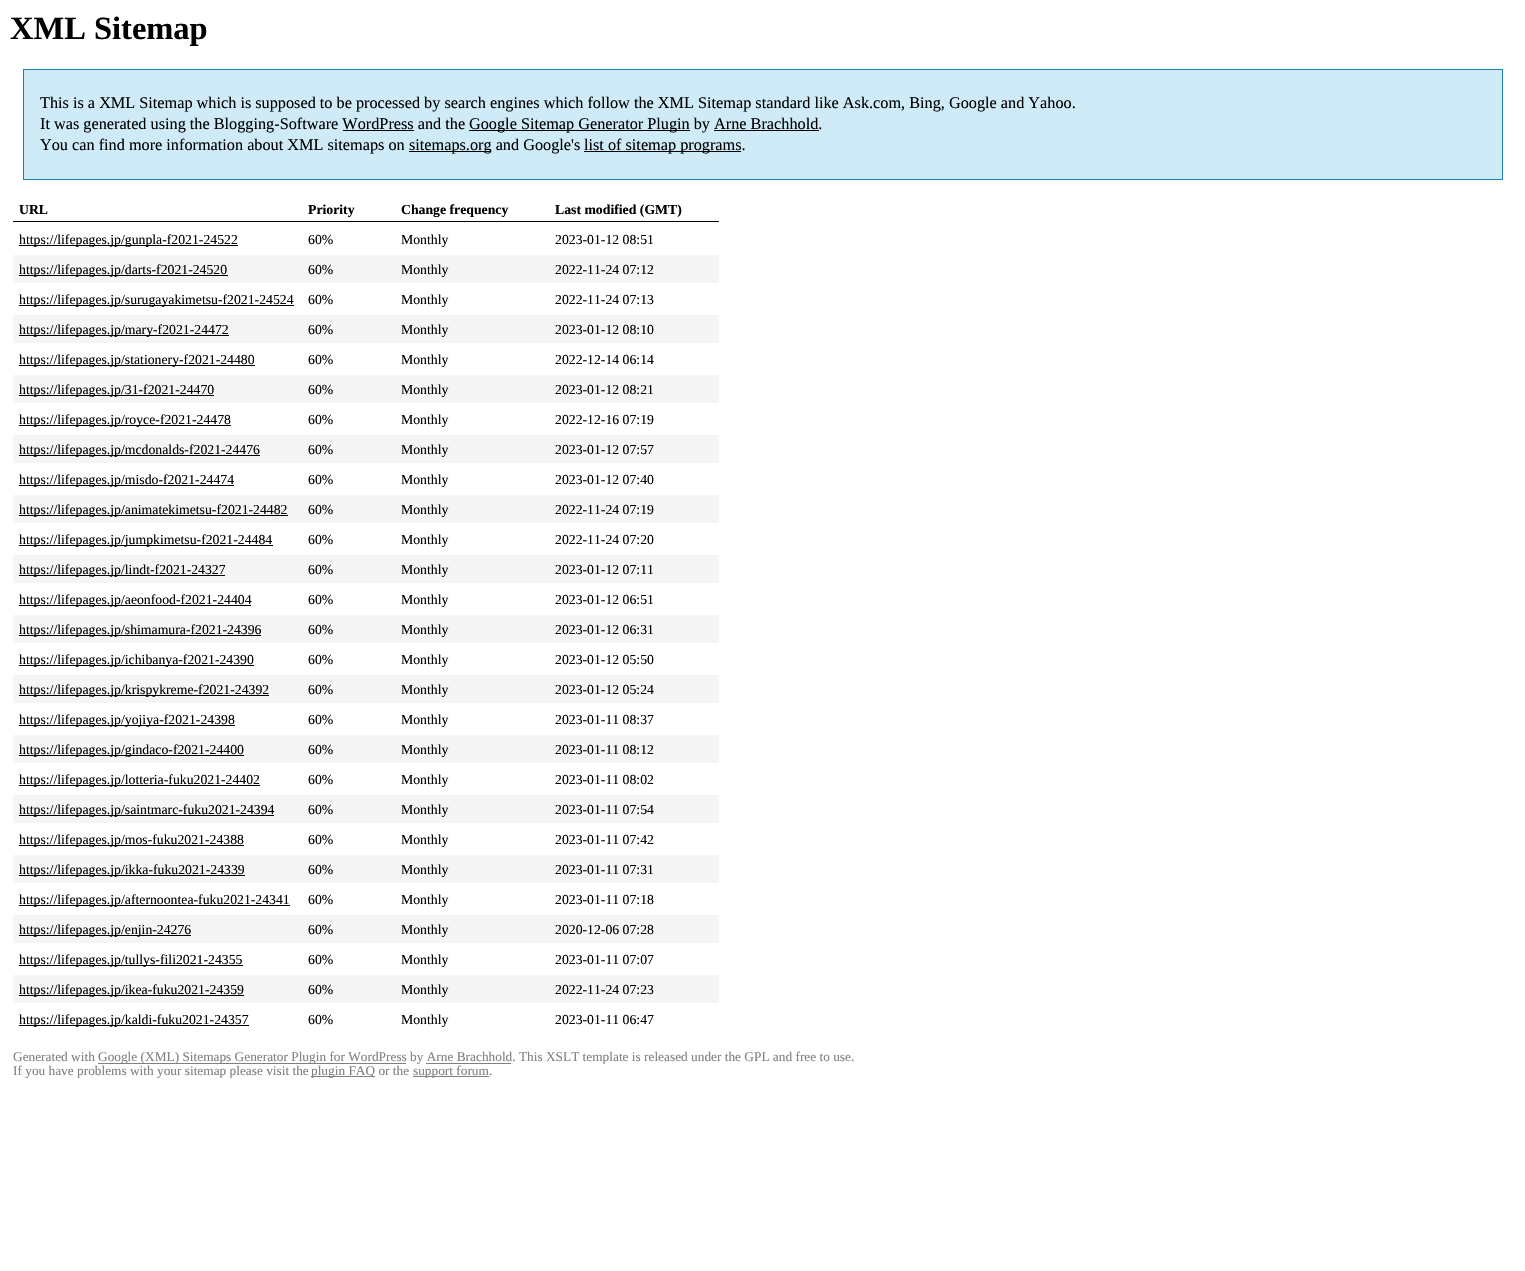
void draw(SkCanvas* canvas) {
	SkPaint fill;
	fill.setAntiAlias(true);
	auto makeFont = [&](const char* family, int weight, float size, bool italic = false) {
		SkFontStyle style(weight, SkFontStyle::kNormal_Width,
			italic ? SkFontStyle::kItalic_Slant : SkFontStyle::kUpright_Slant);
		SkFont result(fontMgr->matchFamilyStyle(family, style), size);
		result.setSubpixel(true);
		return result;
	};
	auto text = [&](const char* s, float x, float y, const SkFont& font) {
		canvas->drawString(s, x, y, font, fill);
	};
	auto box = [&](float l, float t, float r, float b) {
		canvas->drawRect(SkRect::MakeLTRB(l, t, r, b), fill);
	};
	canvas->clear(0xFFFFFFFF);
	fill.setColor(0xFFCFEBF7);
	canvas->drawRect(SkRect::MakeLTRB(23.5f, 69.5f, 1502.5f, 179.5f), fill);
	fill.setStyle(SkPaint::kStroke_Style);
	fill.setStrokeWidth(1);
	fill.setColor(0xFF2580B2);
	canvas->drawRect(SkRect::MakeLTRB(23.5f, 69.5f, 1502.5f, 179.5f), fill);
	fill.setStyle(SkPaint::kFill_Style);
	fill.setColor(0xFF000000);
	box(469, 130, 690, 131);
	box(343, 130, 414, 131);
	box(714, 130, 819, 131);
	box(409, 151, 491, 152);
	box(584, 151, 741, 152);
	box(13, 221, 719, 222);
	box(19, 245, 238, 246);
	fill.setColor(0xFFF5F5F5);
	box(13, 255, 719, 283);
	fill.setColor(0xFF000000);
	box(19, 275, 228, 276);
	box(19, 305, 294, 306);
	fill.setColor(0xFFF5F5F5);
	box(13, 315, 719, 343);
	fill.setColor(0xFF000000);
	box(19, 335, 229, 336);
	box(19, 365, 255, 366);
	fill.setColor(0xFFF5F5F5);
	box(13, 375, 719, 403);
	fill.setColor(0xFF000000);
	box(19, 395, 214, 396);
	box(19, 425, 231, 426);
	fill.setColor(0xFFF5F5F5);
	box(13, 435, 719, 463);
	fill.setColor(0xFF000000);
	box(19, 455, 260, 456);
	box(19, 485, 234, 486);
	fill.setColor(0xFFF5F5F5);
	box(13, 495, 719, 523);
	fill.setColor(0xFF000000);
	box(19, 515, 288, 516);
	box(19, 545, 273, 546);
	fill.setColor(0xFFF5F5F5);
	box(13, 555, 719, 583);
	fill.setColor(0xFF000000);
	box(19, 575, 225, 576);
	box(19, 605, 251, 606);
	fill.setColor(0xFFF5F5F5);
	box(13, 615, 719, 643);
	fill.setColor(0xFF000000);
	box(19, 635, 261, 636);
	box(19, 665, 254, 666);
	fill.setColor(0xFFF5F5F5);
	box(13, 675, 719, 703);
	fill.setColor(0xFF000000);
	box(19, 695, 269, 696);
	box(19, 725, 235, 726);
	fill.setColor(0xFFF5F5F5);
	box(13, 735, 719, 763);
	fill.setColor(0xFF000000);
	box(19, 755, 244, 756);
	box(19, 785, 260, 786);
	fill.setColor(0xFFF5F5F5);
	box(13, 795, 719, 823);
	fill.setColor(0xFF000000);
	box(19, 815, 274, 816);
	box(19, 845, 244, 846);
	fill.setColor(0xFFF5F5F5);
	box(13, 855, 719, 883);
	fill.setColor(0xFF000000);
	box(19, 875, 245, 876);
	box(19, 905, 290, 906);
	fill.setColor(0xFFF5F5F5);
	box(13, 915, 719, 943);
	fill.setColor(0xFF000000);
	box(19, 935, 191, 936);
	box(19, 965, 243, 966);
	fill.setColor(0xFFF5F5F5);
	box(13, 975, 719, 1003);
	fill.setColor(0xFF000000);
	box(19, 995, 244, 996);
	box(19, 1025, 249, 1026);
	fill.setColor(0xFF808080);
	box(98, 1063, 406, 1064);
	box(426, 1063, 511, 1064);
	box(311, 1076, 375, 1077);
	box(413, 1076, 489, 1077);
	auto font1 = makeFont("Liberation Serif", 700, 32.5f);
	fill.setColor(0xFF000000);
	text("XML Sitemap", 10, 39, font1);
	auto font2 = makeFont("Liberation Serif", 400, 16.25f);
	text("This is a XML Sitemap which is supposed to be processed by search engines which follow the XML Sitemap standard like Ask.com, Bing, Google and Yahoo.", 40, 108, font2);
	text("It was generated using the Blogging-Software WordPress and the", 40, 129, font2);
	text("Google Sitemap Generator Plugin by Arne Brachhold.", 469, 129, font2);
	text("You can find more information about XML sitemaps on", 40, 150, font2);
	text("sitemaps.org and Google's", 409, 150, font2);
	text("list of sitemap programs.", 584, 150, font2);
	auto font3 = makeFont("Liberation Serif", 700, 13.75f);
	text("URL", 19, 214, font3);
	text("Priority", 308, 214, font3);
	text("Change frequency", 401, 214, font3);
	text("Last modified (GMT)", 555, 214, font3);
	auto font4 = makeFont("Liberation Serif", 400, 13.75f);
	text("https://lifepages.jp/gunpla-f2021-24522", 19, 244, font4);
	text("60%", 308, 244, font4);
	text("Monthly", 401, 244, font4);
	text("2023-01-12 08:51", 555, 244, font4);
	text("https://lifepages.jp/darts-f2021-24520", 19, 274, font4);
	text("60%", 308, 274, font4);
	text("Monthly", 401, 274, font4);
	text("2022-11-24 07:12", 555, 274, font4);
	text("https://lifepages.jp/surugayakimetsu-f2021-24524", 19, 304, font4);
	text("60%", 308, 304, font4);
	text("Monthly", 401, 304, font4);
	text("2022-11-24 07:13", 555, 304, font4);
	text("https://lifepages.jp/mary-f2021-24472", 19, 334, font4);
	text("60%", 308, 334, font4);
	text("Monthly", 401, 334, font4);
	text("2023-01-12 08:10", 555, 334, font4);
	text("https://lifepages.jp/stationery-f2021-24480", 19, 364, font4);
	text("60%", 308, 364, font4);
	text("Monthly", 401, 364, font4);
	text("2022-12-14 06:14", 555, 364, font4);
	text("https://lifepages.jp/31-f2021-24470", 19, 394, font4);
	text("60%", 308, 394, font4);
	text("Monthly", 401, 394, font4);
	text("2023-01-12 08:21", 555, 394, font4);
	text("https://lifepages.jp/royce-f2021-24478", 19, 424, font4);
	text("60%", 308, 424, font4);
	text("Monthly", 401, 424, font4);
	text("2022-12-16 07:19", 555, 424, font4);
	text("https://lifepages.jp/mcdonalds-f2021-24476", 19, 454, font4);
	text("60%", 308, 454, font4);
	text("Monthly", 401, 454, font4);
	text("2023-01-12 07:57", 555, 454, font4);
	text("https://lifepages.jp/misdo-f2021-24474", 19, 484, font4);
	text("60%", 308, 484, font4);
	text("Monthly", 401, 484, font4);
	text("2023-01-12 07:40", 555, 484, font4);
	text("https://lifepages.jp/animatekimetsu-f2021-24482", 19, 514, font4);
	text("60%", 308, 514, font4);
	text("Monthly", 401, 514, font4);
	text("2022-11-24 07:19", 555, 514, font4);
	text("https://lifepages.jp/jumpkimetsu-f2021-24484", 19, 544, font4);
	text("60%", 308, 544, font4);
	text("Monthly", 401, 544, font4);
	text("2022-11-24 07:20", 555, 544, font4);
	text("https://lifepages.jp/lindt-f2021-24327", 19, 574, font4);
	text("60%", 308, 574, font4);
	text("Monthly", 401, 574, font4);
	text("2023-01-12 07:11", 555, 574, font4);
	text("https://lifepages.jp/aeonfood-f2021-24404", 19, 604, font4);
	text("60%", 308, 604, font4);
	text("Monthly", 401, 604, font4);
	text("2023-01-12 06:51", 555, 604, font4);
	text("https://lifepages.jp/shimamura-f2021-24396", 19, 634, font4);
	text("60%", 308, 634, font4);
	text("Monthly", 401, 634, font4);
	text("2023-01-12 06:31", 555, 634, font4);
	text("https://lifepages.jp/ichibanya-f2021-24390", 19, 664, font4);
	text("60%", 308, 664, font4);
	text("Monthly", 401, 664, font4);
	text("2023-01-12 05:50", 555, 664, font4);
	text("https://lifepages.jp/krispykreme-f2021-24392", 19, 694, font4);
	text("60%", 308, 694, font4);
	text("Monthly", 401, 694, font4);
	text("2023-01-12 05:24", 555, 694, font4);
	text("https://lifepages.jp/yojiya-f2021-24398", 19, 724, font4);
	text("60%", 308, 724, font4);
	text("Monthly", 401, 724, font4);
	text("2023-01-11 08:37", 555, 724, font4);
	text("https://lifepages.jp/gindaco-f2021-24400", 19, 754, font4);
	text("60%", 308, 754, font4);
	text("Monthly", 401, 754, font4);
	text("2023-01-11 08:12", 555, 754, font4);
	text("https://lifepages.jp/lotteria-fuku2021-24402", 19, 784, font4);
	text("60%", 308, 784, font4);
	text("Monthly", 401, 784, font4);
	text("2023-01-11 08:02", 555, 784, font4);
	text("https://lifepages.jp/saintmarc-fuku2021-24394", 19, 814, font4);
	text("60%", 308, 814, font4);
	text("Monthly", 401, 814, font4);
	text("2023-01-11 07:54", 555, 814, font4);
	text("https://lifepages.jp/mos-fuku2021-24388", 19, 844, font4);
	text("60%", 308, 844, font4);
	text("Monthly", 401, 844, font4);
	text("2023-01-11 07:42", 555, 844, font4);
	text("https://lifepages.jp/ikka-fuku2021-24339", 19, 874, font4);
	text("60%", 308, 874, font4);
	text("Monthly", 401, 874, font4);
	text("2023-01-11 07:31", 555, 874, font4);
	text("https://lifepages.jp/afternoontea-fuku2021-24341", 19, 904, font4);
	text("60%", 308, 904, font4);
	text("Monthly", 401, 904, font4);
	text("2023-01-11 07:18", 555, 904, font4);
	text("https://lifepages.jp/enjin-24276", 19, 934, font4);
	text("60%", 308, 934, font4);
	text("Monthly", 401, 934, font4);
	text("2020-12-06 07:28", 555, 934, font4);
	text("https://lifepages.jp/tullys-fili2021-24355", 19, 964, font4);
	text("60%", 308, 964, font4);
	text("Monthly", 401, 964, font4);
	text("2023-01-11 07:07", 555, 964, font4);
	text("https://lifepages.jp/ikea-fuku2021-24359", 19, 994, font4);
	text("60%", 308, 994, font4);
	text("Monthly", 401, 994, font4);
	text("2022-11-24 07:23", 555, 994, font4);
	text("https://lifepages.jp/kaldi-fuku2021-24357", 19, 1024, font4);
	text("60%", 308, 1024, font4);
	text("Monthly", 401, 1024, font4);
	text("2023-01-11 06:47", 555, 1024, font4);
	auto font5 = makeFont("Liberation Serif", 400, 13.33f);
	fill.setColor(0xFF808080);
	text("Generated with", 13, 1061, font5);
	text("Google (XML) Sitemaps Generator Plugin for WordPress by Arne Brachhold. This XSLT template is released under the GPL and free to use.", 98, 1061, font5);
	text("If you have problems with your sitemap please visit the", 13, 1075, font5);
	text("plugin FAQ or the", 311, 1075, font5);
	text("support forum.", 413, 1075, font5);
}
